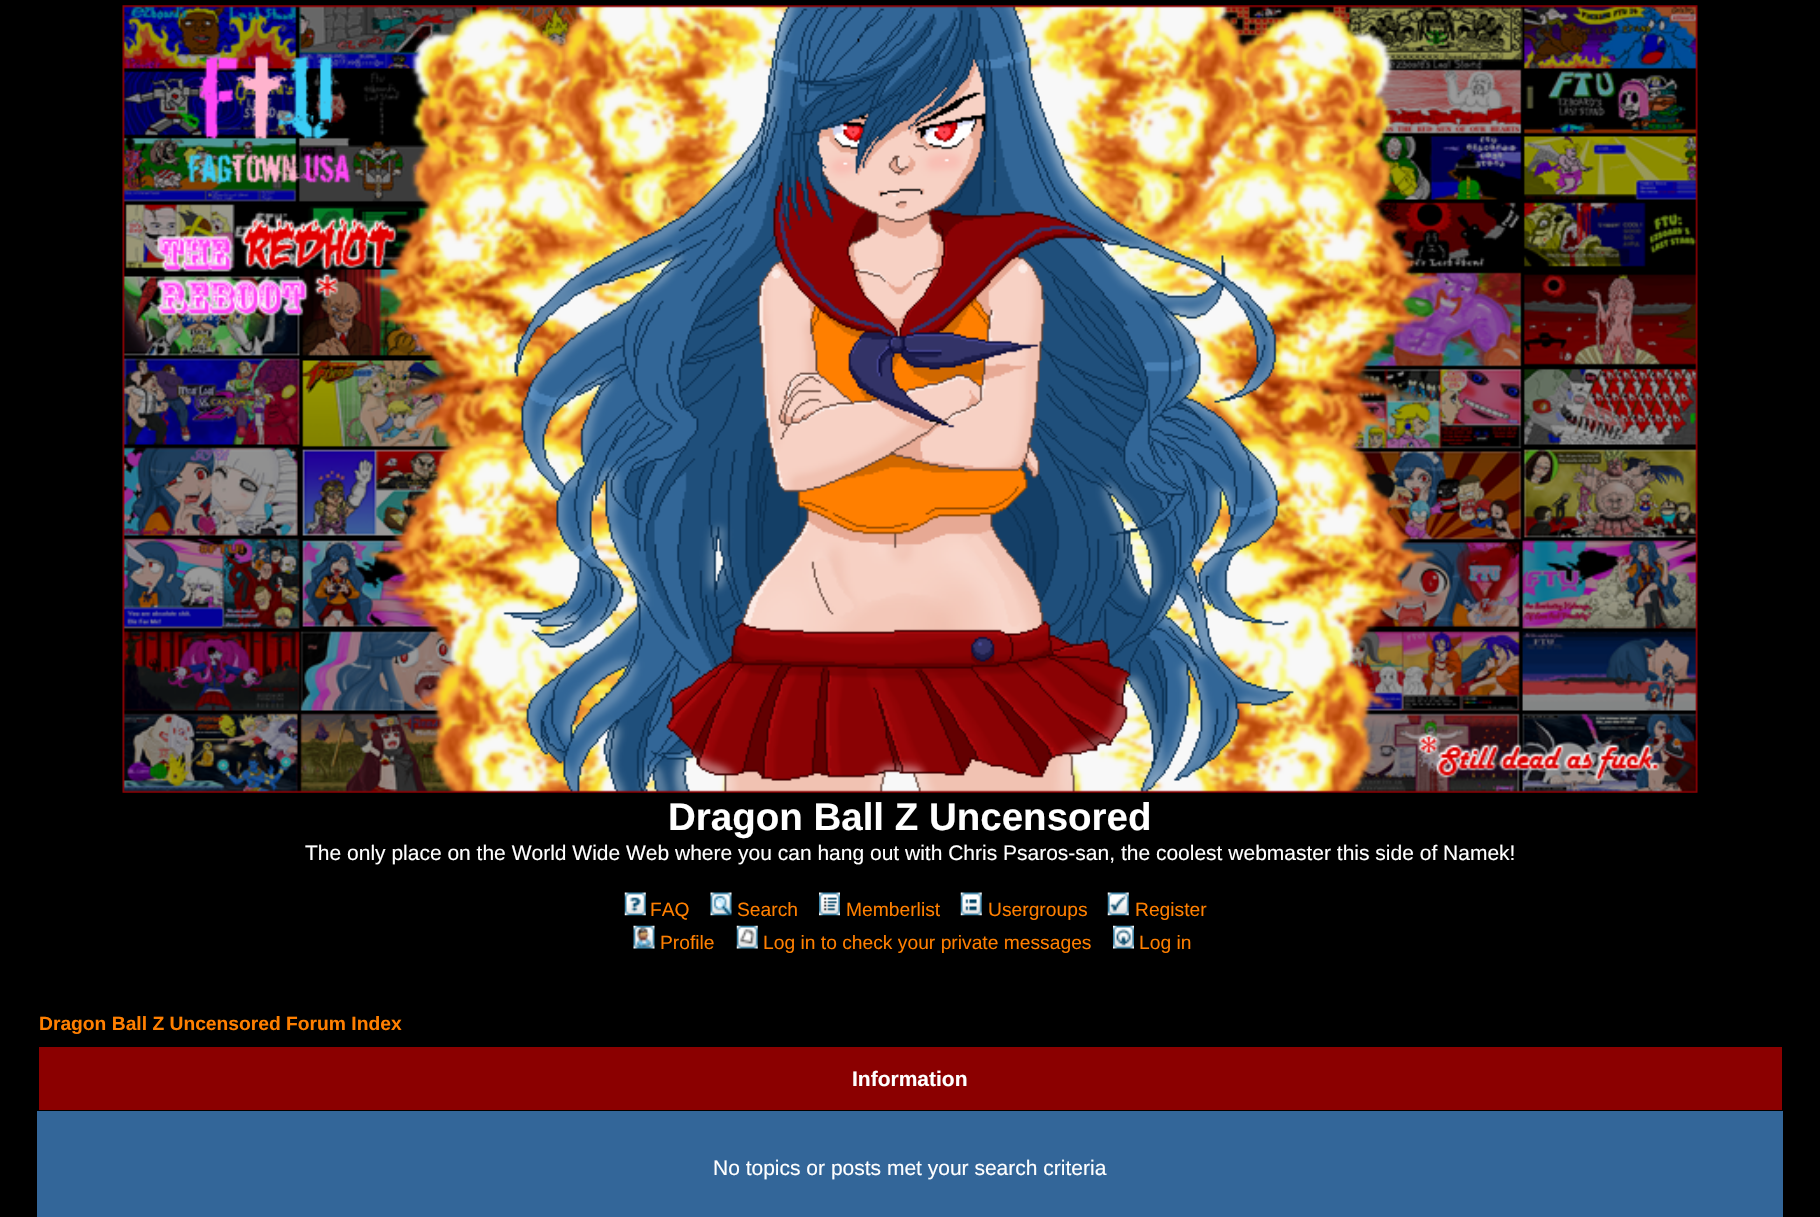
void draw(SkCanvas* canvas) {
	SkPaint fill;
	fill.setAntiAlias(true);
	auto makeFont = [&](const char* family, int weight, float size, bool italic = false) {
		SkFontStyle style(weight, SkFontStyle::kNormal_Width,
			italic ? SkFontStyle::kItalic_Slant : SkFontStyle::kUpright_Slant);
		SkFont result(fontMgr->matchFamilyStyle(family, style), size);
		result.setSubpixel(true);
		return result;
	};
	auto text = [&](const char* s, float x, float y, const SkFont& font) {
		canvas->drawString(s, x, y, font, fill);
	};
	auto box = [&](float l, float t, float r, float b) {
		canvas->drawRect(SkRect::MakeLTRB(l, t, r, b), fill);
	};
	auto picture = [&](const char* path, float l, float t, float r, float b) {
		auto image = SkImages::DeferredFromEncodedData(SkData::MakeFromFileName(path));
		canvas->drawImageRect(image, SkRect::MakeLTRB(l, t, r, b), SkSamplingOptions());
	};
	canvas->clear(0xFF000000);
	picture("image0.png", 122, 5, 1698, 793);
	picture("image1.png", 624, 892, 646, 916);
	picture("image2.png", 710, 892, 732, 916);
	picture("image3.png", 819, 892, 840, 916);
	picture("image4.png", 960, 892, 982, 916);
	picture("image5.png", 1107, 892, 1129, 916);
	picture("image6.png", 633, 925, 655, 949);
	picture("image7.png", 736, 925, 758, 949);
	picture("image8.png", 1113, 925, 1134, 949);
	fill.setColor(0xFF8B0000);
	box(39, 1047, 1782, 1110);
	fill.setColor(0xFF336699);
	box(37, 1111, 1783, 1217);
	auto font1 = makeFont("Liberation Sans", 700, 38.5f);
	fill.setColor(0xFFFFFFFF);
	text("Dragon Ball Z Uncensored", 668, 830, font1);
	auto font2 = makeFont("Liberation Sans", 400, 21);
	text("The only place on the World Wide Web where you can hang out with Chris Psaros-san, the coolest webmaster this side of Namek!", 305, 860, font2);
	auto font3 = makeFont("Liberation Sans", 400, 19.25f);
	fill.setColor(0xFFFF7F00);
	text("FAQ", 650, 916, font3);
	text("Search", 737, 916, font3);
	text("Memberlist", 846, 916, font3);
	text("Usergroups", 988, 916, font3);
	text("Register", 1135, 916, font3);
	text("Profile", 660, 949, font3);
	text("Log in to check your private messages", 763, 949, font3);
	text("Log in", 1139, 949, font3);
	auto font4 = makeFont("Liberation Sans", 700, 19.25f);
	text("Dragon Ball Z Uncensored Forum Index", 39, 1030, font4);
	auto font5 = makeFont("Liberation Sans", 700, 21);
	fill.setColor(0xFFFFFFFF);
	text("Information", 852, 1086, font5);
	text("No topics or posts met your search criteria", 713, 1175, font2);
}
